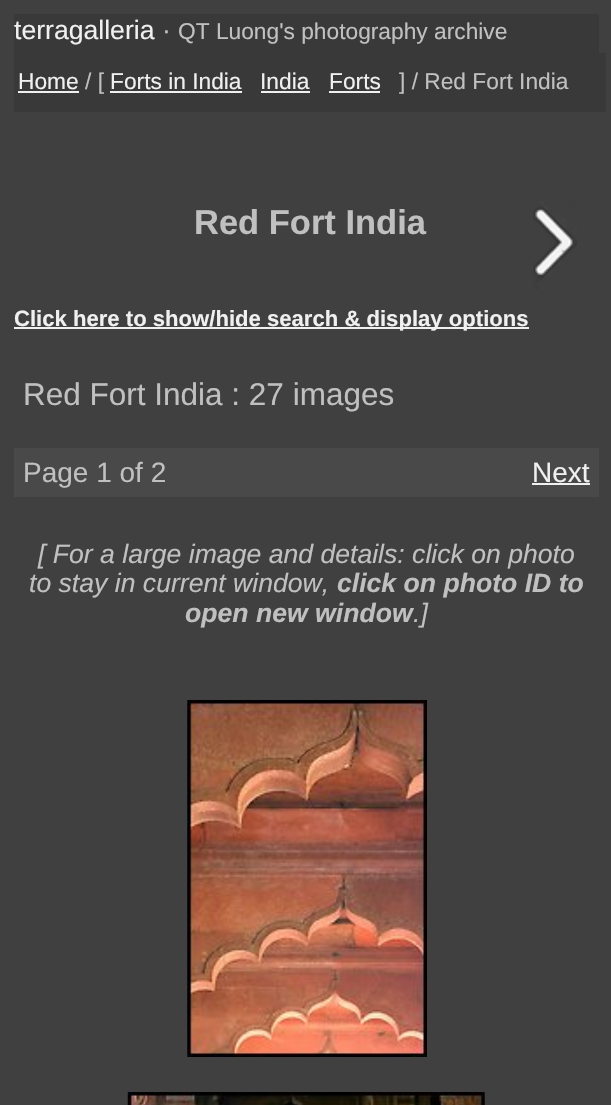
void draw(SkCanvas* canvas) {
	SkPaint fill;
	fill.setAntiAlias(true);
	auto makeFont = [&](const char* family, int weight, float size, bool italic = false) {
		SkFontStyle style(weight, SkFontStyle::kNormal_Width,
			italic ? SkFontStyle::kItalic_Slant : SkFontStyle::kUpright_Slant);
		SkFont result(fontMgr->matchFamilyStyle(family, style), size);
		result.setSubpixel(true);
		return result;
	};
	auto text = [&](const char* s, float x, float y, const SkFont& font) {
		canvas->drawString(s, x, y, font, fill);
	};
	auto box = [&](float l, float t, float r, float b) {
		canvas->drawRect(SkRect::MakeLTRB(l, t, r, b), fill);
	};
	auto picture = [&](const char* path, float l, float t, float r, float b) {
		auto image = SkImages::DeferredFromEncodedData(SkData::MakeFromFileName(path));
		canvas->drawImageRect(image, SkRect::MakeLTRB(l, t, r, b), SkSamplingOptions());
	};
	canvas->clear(0xFF404040);
	fill.setColor(0xFF393939);
	box(14, 14, 599, 53);
	box(14, 53, 606, 112);
	fill.setColor(0xFFF0F0F0);
	box(18, 91, 79, 93);
	box(110, 91, 242, 93);
	box(261, 91, 310, 93);
	box(329, 91, 380, 93);
	picture("image0.png", 533, 201, 577, 289);
	box(14, 327, 529, 329);
	fill.setColor(0xFF494949);
	box(14, 448, 599, 497);
	fill.setColor(0xFFF0F0F0);
	box(532, 483, 590, 485);
	picture("image1.png", 187, 700, 427, 1057);
	picture("image2.png", 127, 1092, 485, 1105);
	auto font1 = makeFont("Liberation Sans", 400, 26.6f);
	text("terragalleria", 14, 39, font1);
	fill.setColor(0xFFC0C0C0);
	text("·", 162, 39, font1);
	auto font2 = makeFont("Liberation Sans", 400, 22.75f);
	text("QT Luong's photography archive", 178, 39, font2);
	fill.setColor(0xFFF0F0F0);
	text("Home", 18, 89, font2);
	fill.setColor(0xFFC0C0C0);
	text("/ [", 85, 89, font2);
	fill.setColor(0xFFF0F0F0);
	text("Forts in India", 110, 89, font2);
	text("India", 260, 89, font2);
	text("Forts", 329, 89, font2);
	fill.setColor(0xFFC0C0C0);
	text("] / Red Fort India", 399, 89, font2);
	auto font3 = makeFont("Liberation Sans", 700, 34.5f);
	text("Red Fort India", 194, 234, font3);
	auto font4 = makeFont("Liberation Sans", 700, 22.1f);
	fill.setColor(0xFFF0F0F0);
	text("Click here to show/hide search & display options", 14, 326, font4);
	auto font5 = makeFont("Liberation Sans", 400, 31.5f);
	fill.setColor(0xFFC0C0C0);
	text("Red Fort India : 27 images", 23, 405, font5);
	auto font6 = makeFont("Liberation Sans", 400, 28);
	text("Page 1 of 2", 23, 482, font6);
	fill.setColor(0xFFF0F0F0);
	text("Next", 532, 482, font6);
	auto font7 = makeFont("Liberation Sans", 400, 26.6f, true);
	fill.setColor(0xFFC0C0C0);
	text("[ For a large image and details: click on photo", 38, 563, font7);
	text("to stay in current window,", 29, 592, font7);
	auto font8 = makeFont("Liberation Sans", 700, 26.6f, true);
	text("click on photo ID to", 337, 592, font8);
	text("open new window", 185, 622, font8);
	text(".]", 413, 622, font7);
}
